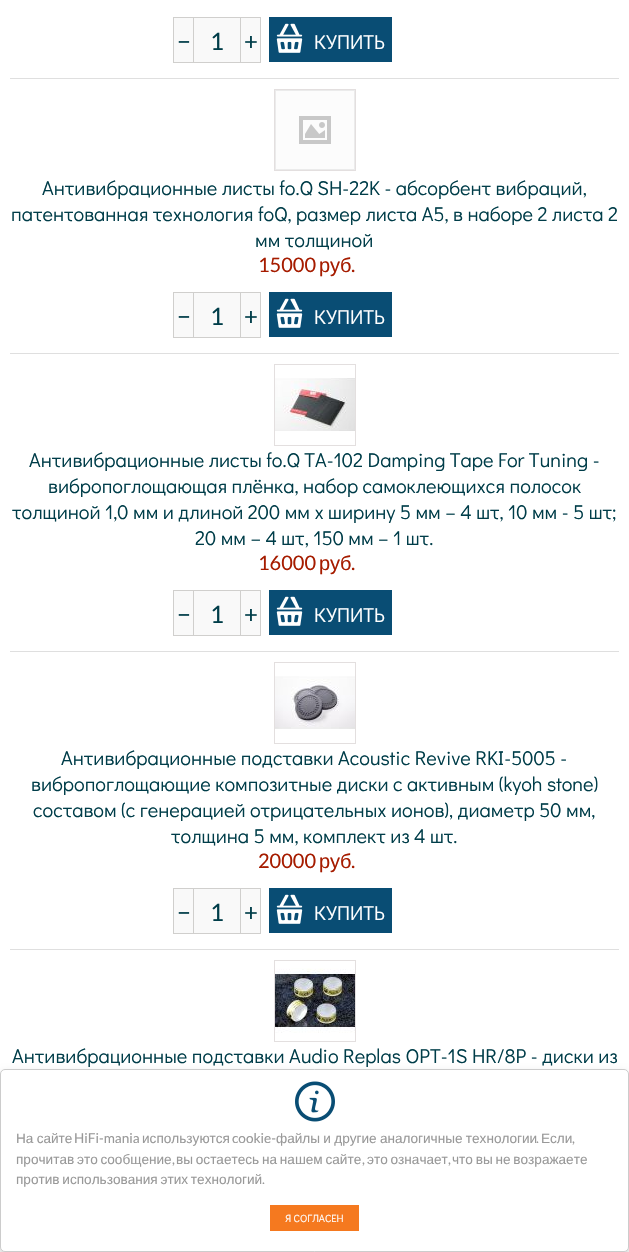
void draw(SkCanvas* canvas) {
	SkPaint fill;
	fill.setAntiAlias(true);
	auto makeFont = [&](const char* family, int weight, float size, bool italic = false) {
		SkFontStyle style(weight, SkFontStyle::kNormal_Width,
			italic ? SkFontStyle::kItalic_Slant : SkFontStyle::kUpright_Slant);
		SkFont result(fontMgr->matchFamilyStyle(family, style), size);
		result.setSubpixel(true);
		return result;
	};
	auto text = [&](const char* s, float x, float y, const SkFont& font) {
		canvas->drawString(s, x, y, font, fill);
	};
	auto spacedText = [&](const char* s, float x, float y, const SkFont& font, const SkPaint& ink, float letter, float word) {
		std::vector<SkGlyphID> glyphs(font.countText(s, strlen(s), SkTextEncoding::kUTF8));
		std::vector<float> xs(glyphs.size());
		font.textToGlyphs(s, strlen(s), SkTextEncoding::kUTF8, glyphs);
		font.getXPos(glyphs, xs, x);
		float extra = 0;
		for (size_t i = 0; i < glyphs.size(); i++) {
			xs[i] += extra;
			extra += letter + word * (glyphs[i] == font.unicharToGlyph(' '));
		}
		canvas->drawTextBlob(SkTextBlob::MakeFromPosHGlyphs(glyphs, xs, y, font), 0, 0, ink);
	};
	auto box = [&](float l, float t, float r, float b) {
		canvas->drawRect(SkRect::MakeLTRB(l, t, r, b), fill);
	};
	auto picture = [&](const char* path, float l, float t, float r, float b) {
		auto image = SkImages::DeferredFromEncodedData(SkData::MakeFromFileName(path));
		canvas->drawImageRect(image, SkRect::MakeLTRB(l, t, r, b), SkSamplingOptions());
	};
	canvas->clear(0xFFFFFFFF);
	fill.setColor(0xFFDFDFDF);
	box(10, 78, 619, 79);
	fill.setColor(0xFFF9F9F9);
	canvas->drawRect(SkRect::MakeLTRB(173.5f, 17.5f, 260.5f, 62.5f), fill);
	fill.setStyle(SkPaint::kStroke_Style);
	fill.setStrokeWidth(1);
	fill.setColor(0xFFD0CFCD);
	canvas->drawRect(SkRect::MakeLTRB(173.5f, 17.5f, 260.5f, 62.5f), fill);
	fill.setStyle(SkPaint::kFill_Style);
	box(240, 18, 241, 62);
	box(193, 18, 194, 62);
	fill.setColor(0xFF094D74);
	box(269, 17, 392, 62);
	picture("image0.png", 276, 23, 303, 53);
	fill.setColor(0xFFDFDFDF);
	box(10, 353, 619, 354);
	fill.setStyle(SkPaint::kStroke_Style);
	fill.setColor(0xFFE3DFDF);
	canvas->drawRect(SkRect::MakeLTRB(274.5f, 89.5f, 355.5f, 170.5f), fill);
	fill.setStyle(SkPaint::kFill_Style);
	fill.setColor(0xFFFCFCFC);
	canvas->drawRect(SkRect::MakeLTRB(275.5f, 90.5f, 354.5f, 169.5f), fill);
	fill.setStyle(SkPaint::kStroke_Style);
	fill.setColor(0xFFEBEBEB);
	canvas->drawRect(SkRect::MakeLTRB(275.5f, 90.5f, 354.5f, 169.5f), fill);
	picture("image1.png", 299, 116, 331, 144);
	fill.setStyle(SkPaint::kFill_Style);
	fill.setColor(0xFFF9F9F9);
	canvas->drawRect(SkRect::MakeLTRB(173.5f, 292.5f, 260.5f, 337.5f), fill);
	fill.setStyle(SkPaint::kStroke_Style);
	fill.setColor(0xFFD0CFCD);
	canvas->drawRect(SkRect::MakeLTRB(173.5f, 292.5f, 260.5f, 337.5f), fill);
	fill.setStyle(SkPaint::kFill_Style);
	box(240, 293, 241, 337);
	box(193, 293, 194, 337);
	fill.setColor(0xFF094D74);
	box(269, 292, 392, 337);
	picture("image0.png", 276, 298, 303, 328);
	fill.setColor(0xFFDFDFDF);
	box(10, 651, 619, 652);
	fill.setStyle(SkPaint::kStroke_Style);
	fill.setColor(0xFFE3DFDF);
	canvas->drawRect(SkRect::MakeLTRB(274.5f, 364.5f, 355.5f, 445.5f), fill);
	picture("image2.png", 275, 378, 355, 431);
	fill.setStyle(SkPaint::kFill_Style);
	fill.setColor(0xFFF9F9F9);
	canvas->drawRect(SkRect::MakeLTRB(173.5f, 590.5f, 260.5f, 635.5f), fill);
	fill.setStyle(SkPaint::kStroke_Style);
	fill.setColor(0xFFD0CFCD);
	canvas->drawRect(SkRect::MakeLTRB(173.5f, 590.5f, 260.5f, 635.5f), fill);
	fill.setStyle(SkPaint::kFill_Style);
	box(240, 591, 241, 635);
	box(193, 591, 194, 635);
	fill.setColor(0xFF094D74);
	box(269, 590, 392, 635);
	picture("image0.png", 276, 596, 303, 626);
	fill.setColor(0xFFDFDFDF);
	box(10, 949, 619, 950);
	fill.setStyle(SkPaint::kStroke_Style);
	fill.setColor(0xFFE3DFDF);
	canvas->drawRect(SkRect::MakeLTRB(274.5f, 662.5f, 355.5f, 743.5f), fill);
	picture("image3.png", 275, 676, 355, 729);
	fill.setStyle(SkPaint::kFill_Style);
	fill.setColor(0xFFF9F9F9);
	canvas->drawRect(SkRect::MakeLTRB(173.5f, 888.5f, 260.5f, 933.5f), fill);
	fill.setStyle(SkPaint::kStroke_Style);
	fill.setColor(0xFFD0CFCD);
	canvas->drawRect(SkRect::MakeLTRB(173.5f, 888.5f, 260.5f, 933.5f), fill);
	fill.setStyle(SkPaint::kFill_Style);
	box(240, 889, 241, 933);
	box(193, 889, 194, 933);
	fill.setColor(0xFF094D74);
	box(269, 888, 392, 933);
	picture("image0.png", 276, 894, 303, 924);
	fill.setStyle(SkPaint::kStroke_Style);
	fill.setColor(0xFFE3DFDF);
	canvas->drawRect(SkRect::MakeLTRB(274.5f, 960.5f, 355.5f, 1041.5f), fill);
	picture("image4.png", 275, 968, 355, 1033);
	fill.setStyle(SkPaint::kFill_Style);
	fill.setColor(0x33000000);
	fill.setMaskFilter(SkMaskFilter::MakeBlur(kNormal_SkBlurStyle, 5));
	canvas->drawRoundRect(SkRect::MakeLTRB(0, 1074, 629, 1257), 5, 5, fill);
	fill.setMaskFilter(nullptr);
	fill.setColor(0xFFFFFFFF);
	canvas->drawRoundRect(SkRect::MakeLTRB(0.5f, 1069.5f, 628.5f, 1251.5f), 4.5f, 4.5f, fill);
	fill.setStyle(SkPaint::kStroke_Style);
	fill.setColor(0xFFCCCCCC);
	canvas->drawRoundRect(SkRect::MakeLTRB(0.5f, 1069.5f, 628.5f, 1251.5f), 4.5f, 4.5f, fill);
	picture("image5.png", 295, 1081, 335, 1122);
	fill.setStyle(SkPaint::kFill_Style);
	fill.setColor(0xFFF5791F);
	box(270, 1205, 359, 1231);
	auto font1 = makeFont("Lato", 400, 24);
	fill.setColor(0xFF003D49);
	text("−", 177, 50, font1);
	text("1", 210, 50, font1);
	text("+", 244, 50, font1);
	auto font2 = makeFont("Didact Gothic", 400, 20);
	fill.setColor(0xFFFFFFFF);
	text("КУПИТЬ", 314, 49, font2);
	fill.setColor(0xFF003D49);
	text("Антивибрационные листы fo.Q SH-22K - абсорбент вибраций,", 42, 195, font2);
	text("патентованная технология foQ, размер листа A5, в наборе 2 листа 2", 11, 221, font2);
	text("мм толщиной", 255, 247, font2);
	auto font3 = makeFont("Lato", 400, 20);
	fill.setColor(0xFFA61C00);
	text("15000", 258, 272, font3);
	auto font4 = makeFont("Liberation Sans", 400, 20);
	text("руб", 319, 272, font4);
	text(".", 351, 272, font3);
	fill.setColor(0xFF003D49);
	text("−", 177, 325, font1);
	text("1", 210, 325, font1);
	text("+", 244, 325, font1);
	fill.setColor(0xFFFFFFFF);
	text("КУПИТЬ", 314, 324, font2);
	fill.setColor(0xFF003D49);
	text("Антивибрационные листы fo.Q TA-102 Damping Tape For Tuning -", 29, 467, font2);
	text("вибропоглощающая плёнка, набор самоклеющихся полосок", 48, 493, font2);
	text("толщиной 1,0 мм и длиной 200 мм х ширину 5 мм – 4 шт, 10 мм - 5 шт;", 12, 519, font2);
	text("20 мм – 4 шт, 150 мм – 1 шт.", 195, 545, font2);
	fill.setColor(0xFFA61C00);
	text("16000", 258, 570, font3);
	text("руб", 319, 570, font4);
	text(".", 351, 570, font3);
	fill.setColor(0xFF003D49);
	text("−", 177, 623, font1);
	text("1", 210, 623, font1);
	text("+", 244, 623, font1);
	fill.setColor(0xFFFFFFFF);
	text("КУПИТЬ", 314, 622, font2);
	fill.setColor(0xFF003D49);
	text("Антивибрационные подставки Acoustic Revive RKI-5005 -", 61, 765, font2);
	text("вибропоглощающие композитные диски с активным (kyoh stone)", 31, 791, font2);
	text("составом (с генерацией отрицательных ионов), диаметр 50 мм,", 33, 817, font2);
	text("толщина 5 мм, комплект из 4 шт.", 171, 843, font2);
	fill.setColor(0xFFA61C00);
	text("20000", 258, 868, font3);
	text("руб", 319, 868, font4);
	text(".", 351, 868, font3);
	fill.setColor(0xFF003D49);
	text("−", 177, 921, font1);
	text("1", 210, 921, font1);
	text("+", 244, 921, font1);
	fill.setColor(0xFFFFFFFF);
	text("КУПИТЬ", 314, 920, font2);
	fill.setColor(0xFF003D49);
	text("Антивибрационные подставки Audio Replas OPT-1S HR/8P - диски из", 12, 1063, font2);
	auto font5 = makeFont("Liberation Sans", 400, 13.6f);
	fill.setColor(0xFF999999);
	spacedText("На сайте", 16, 1143, font5, fill, 0, -0.5f);
	auto font6 = makeFont("Lato", 400, 13.6f);
	text("HiFi-mania", 74, 1143, font6);
	text("используются", 142, 1143, font5);
	text("cookie-", 232, 1143, font6);
	spacedText("файлы и другие аналогичные технологии", 276, 1143, font5, fill, 0, -0.5f);
	text(".", 536, 1143, font6);
	text("Если", 541, 1143, font5);
	text(",", 572, 1143, font6);
	spacedText("прочитав это сообщение", 16, 1164, font5, fill, 0, -1);
	text(",", 172, 1164, font6);
	spacedText("вы остаетесь на нашем сайте", 176, 1164, font5, fill, 0, -1);
	text(",", 362, 1164, font6);
	spacedText("это означает", 367, 1164, font5, fill, 0, -1);
	text(",", 448, 1164, font6);
	spacedText("что вы не возражаете", 452, 1164, font5, fill, 0, -1);
	spacedText("против использования этих технологий", 16, 1184, font5, fill, 0, -1);
	text(".", 262, 1184, font6);
	auto font7 = makeFont("Didact Gothic", 400, 10.5f);
	fill.setColor(0xFFFFFFFF);
	text("Я СОГЛАСЕН", 285, 1222, font7);
}
